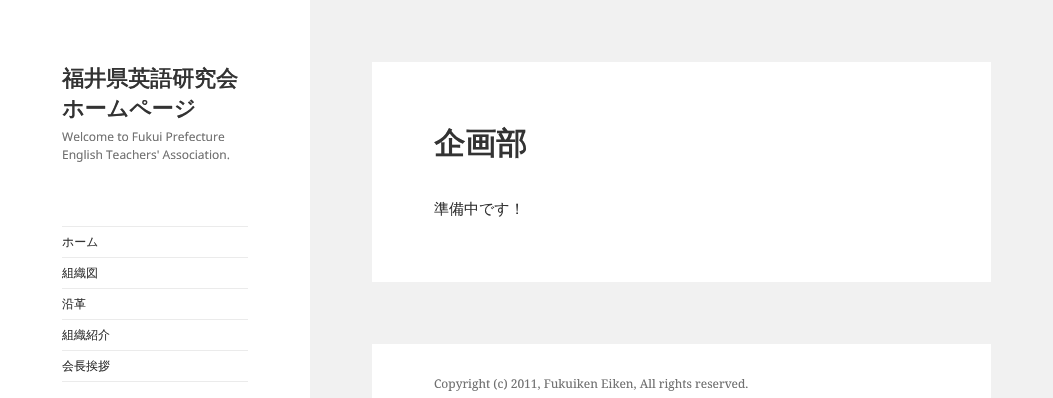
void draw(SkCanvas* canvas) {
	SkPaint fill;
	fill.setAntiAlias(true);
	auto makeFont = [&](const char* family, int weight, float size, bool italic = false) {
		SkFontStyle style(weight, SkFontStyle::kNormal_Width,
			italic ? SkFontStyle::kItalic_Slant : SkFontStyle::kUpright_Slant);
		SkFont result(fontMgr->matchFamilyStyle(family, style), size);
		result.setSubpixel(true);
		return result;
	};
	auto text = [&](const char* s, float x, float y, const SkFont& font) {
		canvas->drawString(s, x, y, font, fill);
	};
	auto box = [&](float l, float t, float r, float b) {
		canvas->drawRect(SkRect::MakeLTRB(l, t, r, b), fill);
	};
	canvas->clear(0xFFF1F1F1);
	fill.setColor(0xFFFFFFFF);
	box(0, 0, 310, 398);
	fill.setColor(0xFFEBEBEB);
	box(62, 226, 248, 227);
	box(62, 257, 248, 258);
	box(62, 288, 248, 289);
	box(62, 319, 248, 320);
	box(62, 350, 248, 351);
	box(62, 381, 248, 382);
	fill.setColor(0xFFFFFFFF);
	box(372, 62, 991, 282);
	box(372, 344, 991, 398);
	auto font1 = makeFont("WenQuanYi Zen Hei", 700, 22);
	fill.setColor(0xFF333333);
	text("福井県英語研究会", 62, 86, font1);
	text("ホームページ", 62, 116, font1);
	auto font2 = makeFont("Noto Sans", 400, 12);
	fill.setColor(0xFF707070);
	text("Welcome to Fukui Prefecture", 62, 141, font2);
	text("English Teachers' Association.", 62, 159, font2);
	auto font3 = makeFont("WenQuanYi Zen Hei", 500, 12);
	fill.setColor(0xFF333333);
	text("ホーム", 62, 246, font3);
	text("組織図", 62, 277, font3);
	text("沿革", 62, 308, font3);
	text("組織紹介", 62, 339, font3);
	text("会長挨拶", 62, 370, font3);
	auto font4 = makeFont("WenQuanYi Zen Hei", 700, 31);
	text("企画部", 434, 154, font4);
	auto font5 = makeFont("WenQuanYi Zen Hei", 500, 15);
	text("準備中です！", 434, 214, font5);
	auto font6 = makeFont("Noto Serif", 400, 12);
	fill.setColor(0xFF707070);
	text("Copyright (c) 2011, Fukuiken Eiken, All rights reserved.", 434, 388, font6);
}
